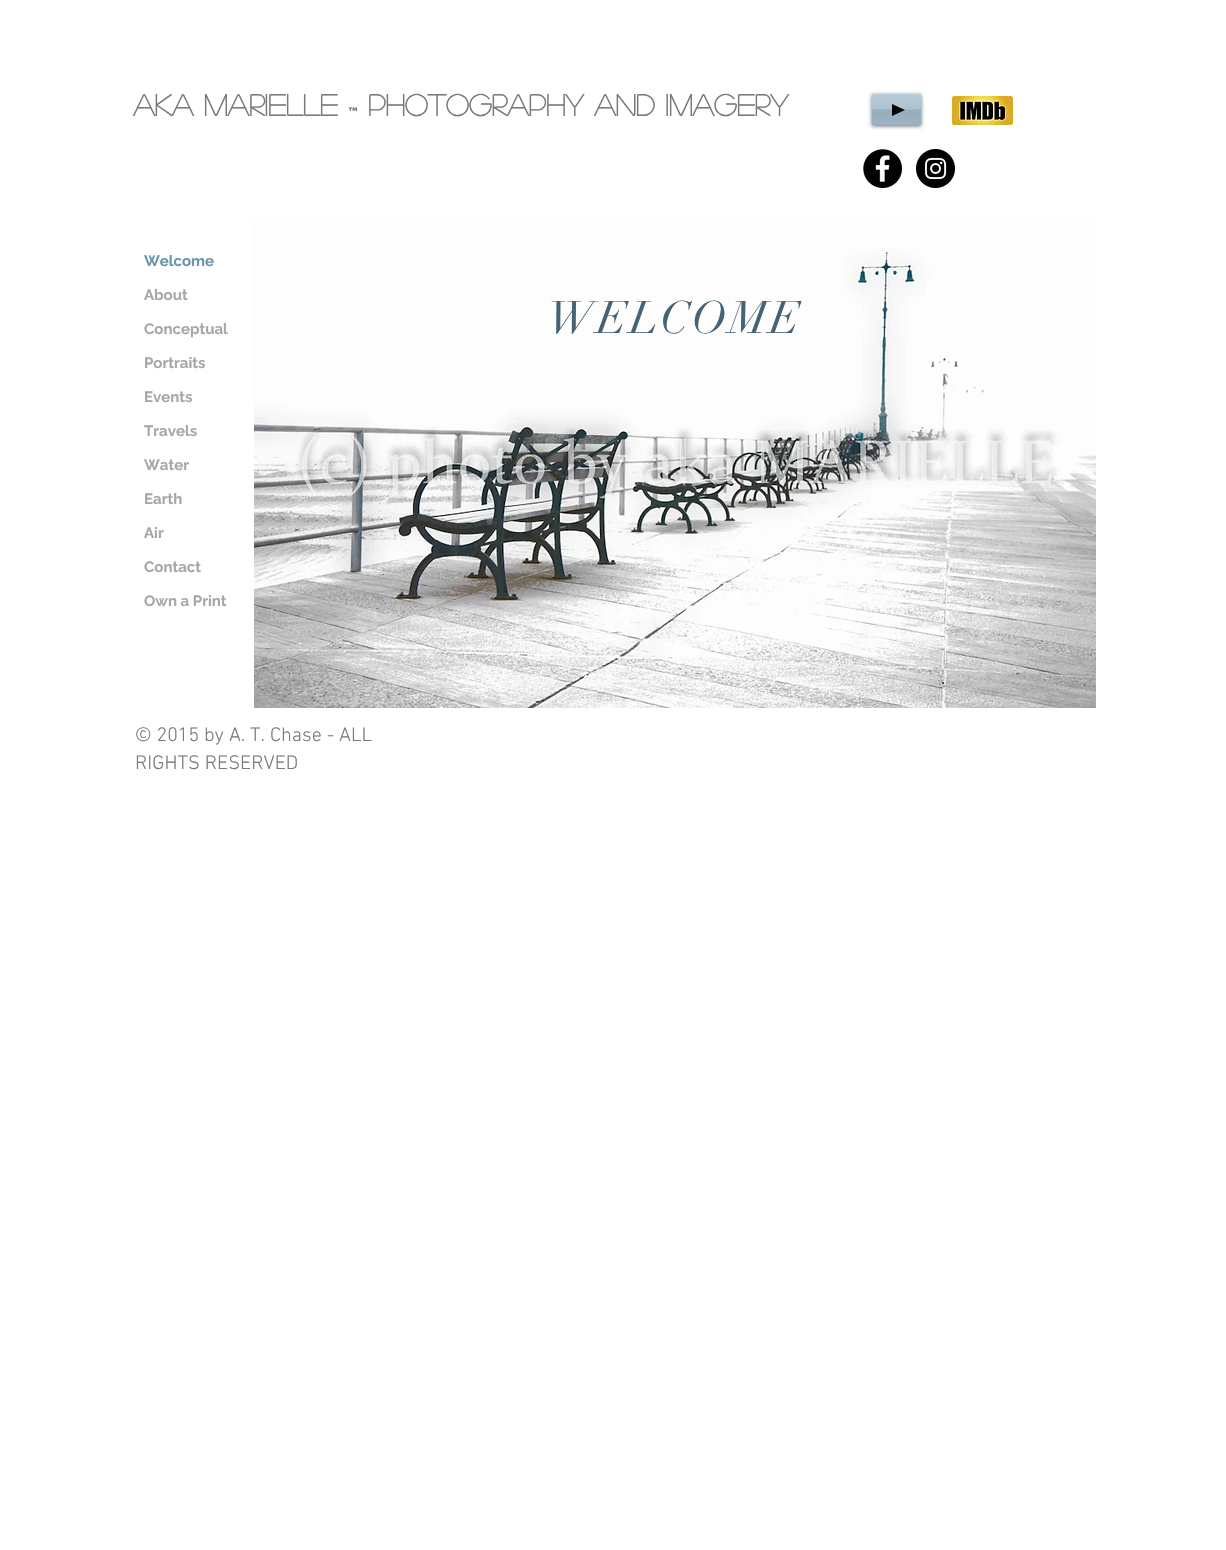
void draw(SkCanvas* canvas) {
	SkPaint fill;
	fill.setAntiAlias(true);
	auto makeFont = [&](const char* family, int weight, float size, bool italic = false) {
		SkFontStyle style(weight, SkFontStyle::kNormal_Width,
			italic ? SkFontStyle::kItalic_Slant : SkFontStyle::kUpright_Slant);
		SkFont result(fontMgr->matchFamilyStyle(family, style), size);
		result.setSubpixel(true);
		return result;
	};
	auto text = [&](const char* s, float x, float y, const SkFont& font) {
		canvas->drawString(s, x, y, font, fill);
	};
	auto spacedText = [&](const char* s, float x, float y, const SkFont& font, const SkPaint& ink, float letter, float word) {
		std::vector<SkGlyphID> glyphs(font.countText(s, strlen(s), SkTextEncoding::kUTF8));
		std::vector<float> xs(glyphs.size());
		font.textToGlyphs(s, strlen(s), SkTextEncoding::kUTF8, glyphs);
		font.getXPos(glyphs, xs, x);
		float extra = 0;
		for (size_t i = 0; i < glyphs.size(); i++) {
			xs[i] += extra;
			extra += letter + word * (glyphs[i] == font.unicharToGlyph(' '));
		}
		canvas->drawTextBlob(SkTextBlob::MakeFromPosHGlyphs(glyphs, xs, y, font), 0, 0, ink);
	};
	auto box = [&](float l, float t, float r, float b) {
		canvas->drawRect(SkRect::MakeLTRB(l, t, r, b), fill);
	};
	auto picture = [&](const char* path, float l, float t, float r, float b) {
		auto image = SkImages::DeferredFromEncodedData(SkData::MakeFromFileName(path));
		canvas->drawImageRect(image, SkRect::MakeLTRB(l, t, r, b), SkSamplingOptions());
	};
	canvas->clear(0xFFFFFFFF);
	fill.setColor(0x99000000);
	fill.setMaskFilter(SkMaskFilter::MakeBlur(kNormal_SkBlurStyle, 2));
	canvas->drawRect(SkRect::MakeLTRB(872, 95, 921, 126), fill);
	fill.setMaskFilter(nullptr);
	fill.setColor(0xFFA1BACA);
	box(872, 94, 921, 125);
	picture("image0.png", 872, 94, 921, 125);
	fill.setColor(0xFF050505);
	canvas->drawPath(SkPathBuilder().moveTo(892, 116).lineTo(892, 104).lineTo(905, 110).close().detach(), fill);
	picture("image1.png", 952, 96, 1013, 125);
	picture("image2.png", 863, 149, 902, 188);
	picture("image3.png", 916, 149, 955, 188);
	picture("image4.png", 254, 217, 1096, 708);
	auto font1 = makeFont("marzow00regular", 700, 30);
	fill.setColor(0xFF797979);
	text("aka MARIELLE", 133, 116, font1);
	auto font2 = makeFont("Raleway", 700, 12);
	text("™", 348, 116, font2);
	text("Photography and Imagery", 368, 116, font1);
	auto font3 = makeFont("Raleway", 700, 15);
	fill.setColor(0xFF6894B0);
	text("Welcome", 144, 266, font3);
	fill.setColor(0xFFA7A7A7);
	text("About", 144, 300, font3);
	text("Conceptual", 144, 334, font3);
	text("Portraits", 144, 368, font3);
	text("Events", 144, 402, font3);
	text("Travels", 144, 436, font3);
	text("Water", 144, 470, font3);
	text("Earth", 144, 504, font3);
	text("Air", 144, 538, font3);
	text("Contact", 144, 572, font3);
	text("Own a Print", 144, 606, font3);
	auto font4 = makeFont("didot", 400, 45);
	fill.setColor(0xFF456375);
	spacedText("WELCOME", 548, 333, font4, fill, 2.25f, 0);
	auto font5 = makeFont("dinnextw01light", 300, 20);
	fill.setColor(0xFF797979);
	text("© 2015 by A. T. Chase - ALL", 135, 741, font5);
	text("RIGHTS RESERVED", 135, 769, font5);
}
